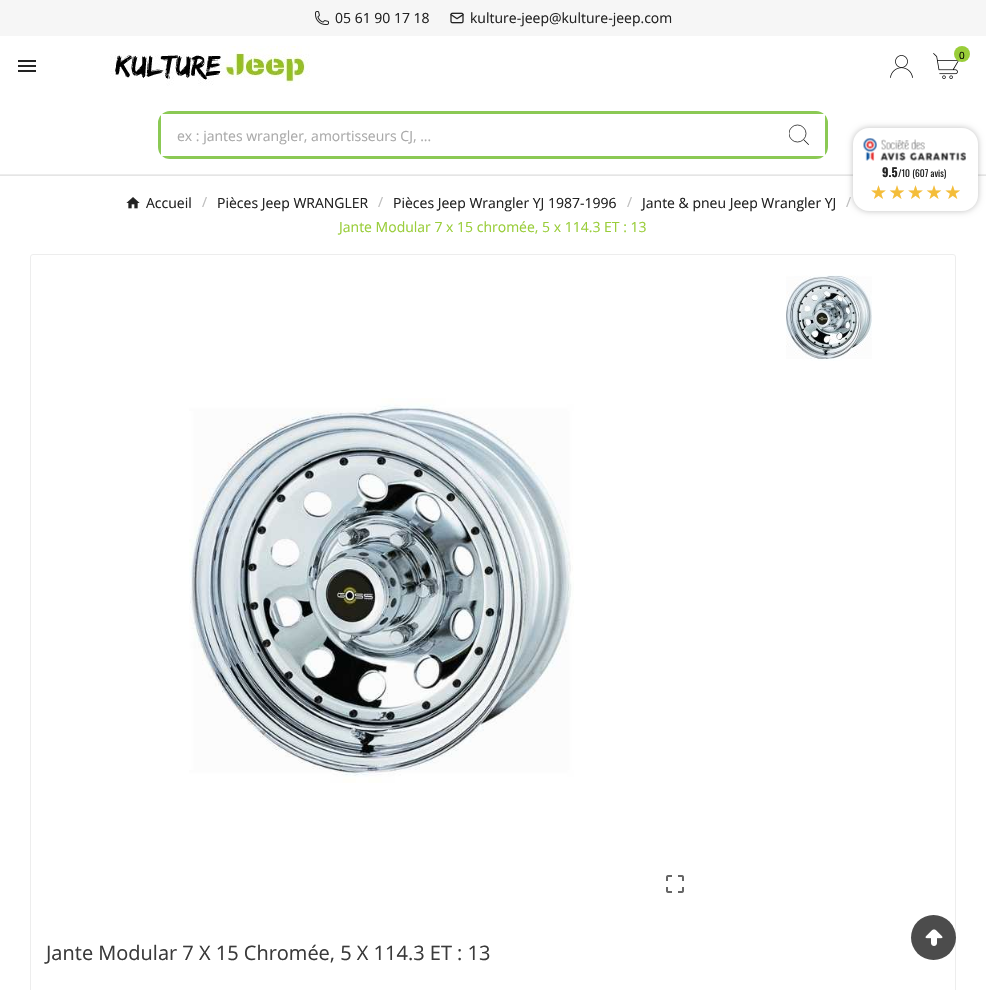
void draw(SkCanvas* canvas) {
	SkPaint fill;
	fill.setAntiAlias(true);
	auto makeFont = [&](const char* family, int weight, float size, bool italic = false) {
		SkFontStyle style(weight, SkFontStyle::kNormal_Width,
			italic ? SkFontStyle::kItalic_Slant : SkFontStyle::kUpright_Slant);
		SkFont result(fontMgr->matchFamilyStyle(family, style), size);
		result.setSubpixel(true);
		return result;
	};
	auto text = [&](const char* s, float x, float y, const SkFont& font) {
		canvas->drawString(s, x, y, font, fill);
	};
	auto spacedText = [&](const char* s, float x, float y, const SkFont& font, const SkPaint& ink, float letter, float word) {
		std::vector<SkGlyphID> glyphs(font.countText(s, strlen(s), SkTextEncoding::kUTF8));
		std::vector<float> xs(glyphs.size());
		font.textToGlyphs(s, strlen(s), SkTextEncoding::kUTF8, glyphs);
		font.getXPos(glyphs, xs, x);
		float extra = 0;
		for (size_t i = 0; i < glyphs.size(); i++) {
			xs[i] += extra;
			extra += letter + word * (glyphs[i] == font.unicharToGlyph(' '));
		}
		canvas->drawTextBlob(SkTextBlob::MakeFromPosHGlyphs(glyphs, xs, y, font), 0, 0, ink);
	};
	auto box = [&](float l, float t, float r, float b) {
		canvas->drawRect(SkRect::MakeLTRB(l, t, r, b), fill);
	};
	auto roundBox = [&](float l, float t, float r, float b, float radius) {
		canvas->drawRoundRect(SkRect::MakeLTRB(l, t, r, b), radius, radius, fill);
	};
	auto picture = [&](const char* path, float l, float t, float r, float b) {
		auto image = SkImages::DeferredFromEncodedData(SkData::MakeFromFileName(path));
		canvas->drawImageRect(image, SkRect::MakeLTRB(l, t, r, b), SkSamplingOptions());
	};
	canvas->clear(0xFFFFFFFF);
	fill.setColor(0xFFE5E5E5);
	box(0, 175, 986, 176);
	fill.setColor(0xFFEDEDED);
	box(0, 174, 986, 175);
	fill.setColor(0xFFF6F6F6);
	box(0, 0, 986, 36);
	picture("image0.png", 315, 11, 329, 25);
	picture("image1.png", 450, 12, 464, 24);
	picture("image2.png", 110, 46, 310, 86);
	picture("image3.png", 890, 55, 913, 78);
	picture("image4.png", 933, 53, 959, 79);
	fill.setColor(0xFF99CD39);
	canvas->drawCircle(962, 54, 8, fill);
	picture("image5.png", 18, 60, 36, 72);
	fill.setStyle(SkPaint::kStroke_Style);
	fill.setStrokeWidth(3);
	fill.setColor(0xFF8BC954);
	canvas->drawRoundRect(SkRect::MakeLTRB(159.5f, 112.5f, 826.5f, 157.5f), 10.5f, 10.5f, fill);
	fill.setStyle(SkPaint::kFill_Style);
	fill.setColor(0xFFFFFFFF);
	box(161, 114, 170, 156);
	box(816, 114, 825, 156);
	fill.setColor(0xFF000000);
	canvas->drawPath(SkPathBuilder().moveTo(808.5f, 145).lineTo(803.5f, 140).lineTo(804, 139.5f).lineTo(809, 144.5f).close().detach(), fill);
	canvas->save();
	canvas->clipRect(SkRect::MakeLTRB(789, 124, 809, 146));
	fill.setStyle(SkPaint::kStroke_Style);
	fill.setStrokeWidth(0.7f);
	canvas->drawCircle(797.5f, 133.5f, 8.5f, fill);
	canvas->restore();
	picture("image6.png", 126, 197, 140, 209);
	fill.setStrokeWidth(1);
	fill.setColor(0xFFEDEDED);
	canvas->drawRoundRect(SkRect::MakeLTRB(30.5f, 254.5f, 955.5f, 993.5f), 2.5f, 2.5f, fill);
	picture("image7.png", 786, 275, 872, 361);
	picture("image8.png", 189, 398, 574, 783);
	picture("image9.png", 666, 875, 684, 893);
	fill.setStyle(SkPaint::kFill_Style);
	fill.setColor(0xFF4C4C4C);
	canvas->drawCircle(933.5f, 937.5f, 22.5f, fill);
	picture("image10.png", 925, 929, 943, 946);
	fill.setColor(0x40000000);
	fill.setMaskFilter(SkMaskFilter::MakeBlur(kNormal_SkBlurStyle, 3));
	canvas->drawRoundRect(SkRect::MakeLTRB(853, 128, 978, 211), 16, 16, fill);
	fill.setMaskFilter(nullptr);
	fill.setColor(0xFFFFFFFF);
	roundBox(853, 128, 978, 211, 16);
	picture("image11.png", 863, 138, 966, 161);
	auto font1 = makeFont("Open Sans", 400, 14);
	fill.setColor(0xFF222222);
	text("05 61 90 17 18", 335, 23, font1);
	text("kulture-jeep@kulture-jeep.com", 470, 23, font1);
	auto font2 = makeFont("Open Sans", 400, 10);
	fill.setColor(0xFF000000);
	text("0", 959, 59, font2);
	fill.setColor(0xFFAAAAAA);
	text("ex : jantes wrangler, amortisseurs CJ, ...", 177, 141, font1);
	fill.setColor(0xFF222222);
	text("Accueil", 146, 208, font1);
	fill.setColor(0xFFBDBDBD);
	text("/", 202, 207, font1);
	fill.setColor(0xFF222222);
	text("Pièces Jeep WRANGLER", 217, 208, font1);
	fill.setColor(0xFFBDBDBD);
	text("/", 378, 207, font1);
	fill.setColor(0xFF222222);
	text("Pièces Jeep Wrangler YJ 1987-1996", 393, 208, font1);
	fill.setColor(0xFFBDBDBD);
	text("/", 627, 207, font1);
	fill.setColor(0xFF222222);
	text("Jante & pneu Jeep Wrangler YJ", 642, 208, font1);
	fill.setColor(0xFFBDBDBD);
	text("/", 846, 207, font1);
	fill.setColor(0xFF99CD39);
	text("Jante Modular 7 x 15 chromée, 5 x 114.3 ET : 13", 339, 232, font1);
	auto font3 = makeFont("Open Sans", 400, 20);
	fill.setColor(0xFF3A3A3A);
	text("Jante Modular 7 X 15 Chromée, 5 X 114.3 ET : 13", 46, 960, font3);
	auto font4 = makeFont("Oswald", 700, 12);
	fill.setColor(0xFF222222);
	text("9.5", 882, 177, font4);
	auto font5 = makeFont("Oswald", 400, 9.5f);
	text("/10 (607 avis)", 898, 177, font5);
	auto font6 = makeFont("DejaVu Sans", 400, 19);
	fill.setColor(0xFFF4BD3A);
	spacedText("★★★★★", 870, 199, font6, fill, 1.5f, 0);
}
